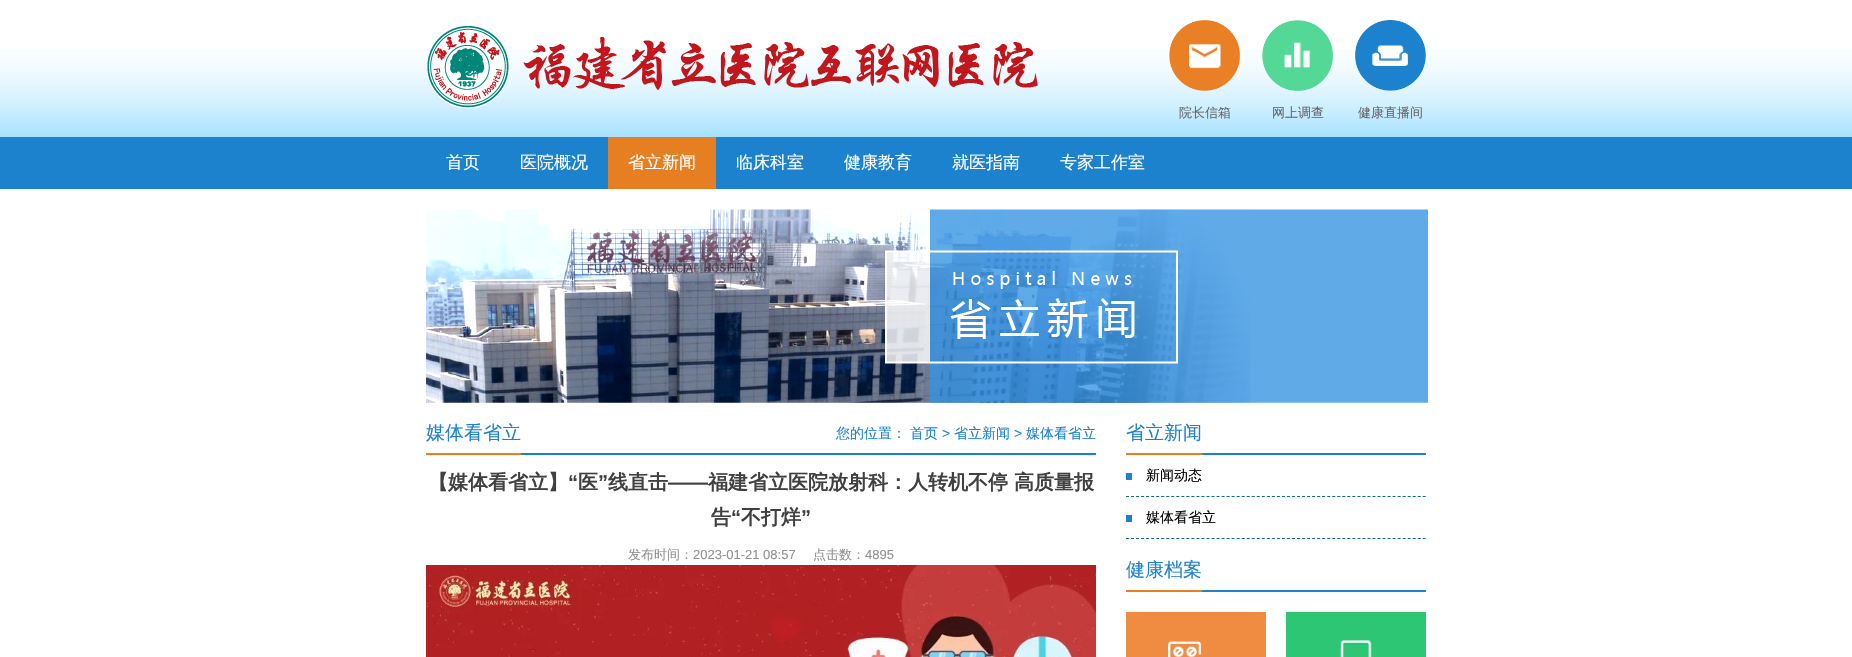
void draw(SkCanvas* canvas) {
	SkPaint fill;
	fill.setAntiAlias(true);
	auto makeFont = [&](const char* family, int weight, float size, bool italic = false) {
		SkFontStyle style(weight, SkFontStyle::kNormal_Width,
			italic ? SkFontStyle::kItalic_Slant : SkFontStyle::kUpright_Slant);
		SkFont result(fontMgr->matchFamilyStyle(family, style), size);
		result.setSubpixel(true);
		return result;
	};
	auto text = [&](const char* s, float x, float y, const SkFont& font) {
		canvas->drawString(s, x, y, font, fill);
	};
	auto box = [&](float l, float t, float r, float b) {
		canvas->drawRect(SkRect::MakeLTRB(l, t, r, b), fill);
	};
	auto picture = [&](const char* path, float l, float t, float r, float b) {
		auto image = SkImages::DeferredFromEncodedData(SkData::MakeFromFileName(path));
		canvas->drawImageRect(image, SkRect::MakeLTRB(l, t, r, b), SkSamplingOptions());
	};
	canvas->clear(0xFFFFFFFF);
	picture("image0.png", 0, 49, 1852, 137);
	picture("image1.png", 426, 26, 1038, 109);
	picture("image2.png", 1169, 20, 1240, 91);
	picture("image3.png", 1262, 20, 1333, 91);
	picture("image4.png", 1355, 20, 1426, 91);
	fill.setColor(0xFF1D82CE);
	box(0, 137, 1852, 189);
	fill.setColor(0xFFE67F22);
	box(608, 137, 716, 189);
	picture("image5.png", 426, 209, 1428, 403);
	fill.setColor(0xFF1D82CE);
	box(521, 453, 1096, 455);
	fill.setColor(0xFFE67F22);
	box(426, 453, 521, 455);
	picture("image6.png", 426, 565, 1096, 657);
	fill.setColor(0xFF1D82CE);
	box(1202, 453, 1426, 455);
	fill.setColor(0xFFE67F22);
	box(1126, 453, 1202, 455);
	fill.setColor(0xFF1D82CE);
	box(1126, 473, 1132, 480);
	fill.setStyle(SkPaint::kStroke_Style);
	fill.setStrokeWidth(1);
	fill.setColor(0xFF0E6D82);
	fill.setPathEffect(SkDashPathEffect::Make({{3, 2.03f}}, 0));
	canvas->drawPath(SkPathBuilder().moveTo(1126, 496.5f).lineTo(1426, 496.5f).detach(), fill);
	fill.setPathEffect(nullptr);
	fill.setStyle(SkPaint::kFill_Style);
	fill.setColor(0xFF1D82CE);
	box(1126, 515, 1132, 522);
	fill.setStyle(SkPaint::kStroke_Style);
	fill.setColor(0xFF0E6D82);
	fill.setPathEffect(SkDashPathEffect::Make({{3, 2.03f}}, 0));
	canvas->drawPath(SkPathBuilder().moveTo(1126, 538.5f).lineTo(1426, 538.5f).detach(), fill);
	fill.setPathEffect(nullptr);
	fill.setStyle(SkPaint::kFill_Style);
	fill.setColor(0xFF1D82CE);
	box(1202, 590, 1426, 592);
	fill.setColor(0xFFE67F22);
	box(1126, 590, 1202, 592);
	fill.setColor(0xFFEF8C41);
	box(1126, 612, 1266, 657);
	picture("image7.png", 1168, 641, 1202, 657);
	fill.setColor(0xFF2CC675);
	box(1286, 612, 1426, 657);
	picture("image8.png", 1340, 640, 1372, 657);
	auto font1 = makeFont("WenQuanYi Zen Hei", 500, 13);
	fill.setColor(0xFF666666);
	text("院长信箱", 1179, 117, font1);
	text("网上调查", 1272, 117, font1);
	text("健康直播间", 1358, 117, font1);
	auto font2 = makeFont("WenQuanYi Zen Hei", 500, 17);
	fill.setColor(0xFFFFFFFF);
	text("首页", 446, 168, font2);
	text("医院概况", 520, 168, font2);
	text("省立新闻", 628, 168, font2);
	text("临床科室", 736, 168, font2);
	text("健康教育", 844, 168, font2);
	text("就医指南", 952, 168, font2);
	text("专家工作室", 1060, 168, font2);
	auto font3 = makeFont("WenQuanYi Zen Hei", 500, 19);
	fill.setColor(0xFF1D82CE);
	text("媒体看省立", 426, 439, font3);
	auto font4 = makeFont("WenQuanYi Zen Hei", 500, 14);
	text("您的位置：", 836, 438, font4);
	text("首页", 910, 438, font4);
	auto font5 = makeFont("Liberation Sans", 400, 14);
	text(">", 942, 438, font5);
	text("省立新闻", 954, 438, font4);
	text(">", 1014, 438, font5);
	text("媒体看省立", 1026, 438, font4);
	auto font6 = makeFont("WenQuanYi Zen Hei", 700, 20);
	fill.setColor(0xFF404040);
	text("【媒体看省立】", 428, 489, font6);
	auto font7 = makeFont("Liberation Sans", 700, 20);
	text("“", 568, 489, font7);
	text("医", 578, 489, font6);
	text("”", 598, 489, font7);
	text("线直击", 608, 489, font6);
	text("——", 668, 489, font7);
	text("福建省立医院放射科：人转机不停 高质量报", 708, 489, font6);
	text("告", 711, 524, font6);
	text("“", 731, 524, font7);
	text("不打烊", 741, 524, font6);
	text("”", 801, 524, font7);
	fill.setColor(0xFF919191);
	text("发布时间：", 628, 559, font1);
	auto font8 = makeFont("Liberation Sans", 400, 13);
	text("2023-01-21 08:57", 693, 559, font8);
	text("点击数：", 813, 559, font1);
	text("4895", 865, 559, font8);
	fill.setColor(0xFF1D82CE);
	text("省立新闻", 1126, 439, font3);
	fill.setColor(0xFF000000);
	text("新闻动态", 1146, 480, font4);
	text("媒体看省立", 1146, 522, font4);
	fill.setColor(0xFF1D82CE);
	text("健康档案", 1126, 576, font3);
}
